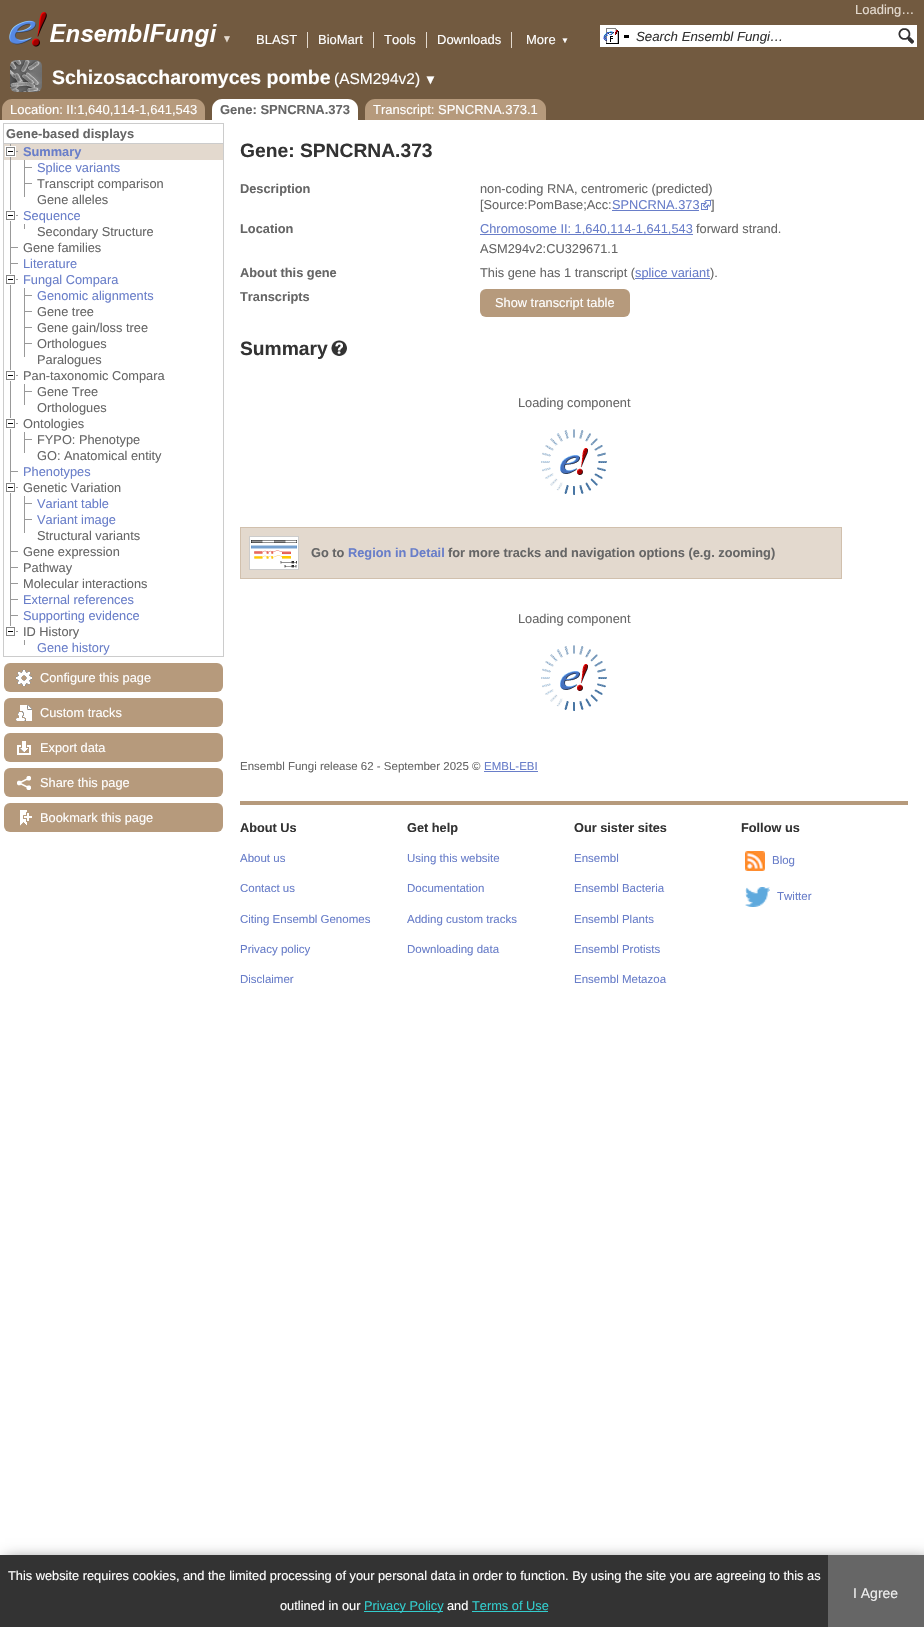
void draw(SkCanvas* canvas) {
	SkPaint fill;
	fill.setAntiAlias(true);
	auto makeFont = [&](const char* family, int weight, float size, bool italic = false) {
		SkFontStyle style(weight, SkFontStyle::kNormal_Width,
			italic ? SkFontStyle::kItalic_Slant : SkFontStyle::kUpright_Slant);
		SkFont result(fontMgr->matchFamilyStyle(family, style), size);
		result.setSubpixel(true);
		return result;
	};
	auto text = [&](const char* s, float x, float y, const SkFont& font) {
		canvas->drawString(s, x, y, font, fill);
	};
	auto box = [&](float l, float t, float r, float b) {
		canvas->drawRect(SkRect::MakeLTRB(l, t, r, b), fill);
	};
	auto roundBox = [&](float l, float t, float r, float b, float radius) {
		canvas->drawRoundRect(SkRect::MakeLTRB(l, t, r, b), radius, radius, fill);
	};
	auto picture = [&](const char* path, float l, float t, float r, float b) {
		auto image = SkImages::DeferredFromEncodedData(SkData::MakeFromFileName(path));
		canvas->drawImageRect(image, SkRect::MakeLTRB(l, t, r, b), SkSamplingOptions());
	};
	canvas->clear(0xFFFFFFFF);
	fill.setColor(0xFF725A40);
	box(0, 0, 924, 120);
	picture("image0.png", 9, 12, 47, 47);
	picture("image1.png", 50, 24, 217, 47);
	fill.setColor(0xFFE3D9CE);
	box(307, 32, 308, 48);
	box(373, 32, 374, 48);
	box(426, 32, 427, 48);
	box(511, 32, 512, 48);
	fill.setColor(0xFFFFFFFF);
	box(600, 25, 917, 47);
	picture("image2.png", 603, 28, 619, 44);
	fill.setColor(0xFF000000);
	box(624, 35, 629, 38);
	picture("image3.png", 898, 28, 914, 44);
	picture("image4.png", 10, 60, 42, 92);
	fill.setColor(0xFFB69A7C);
	canvas->drawPath(SkPathBuilder().moveTo(12, 99).lineTo(195, 99).cubicTo(200.5f, 99, 205, 103.5f, 205, 109).lineTo(205, 120).lineTo(2, 120).lineTo(2, 109).cubicTo(2, 103.5f, 6.5f, 99, 12, 99).close().detach(), fill);
	fill.setColor(0xFFFFFFFF);
	canvas->drawPath(SkPathBuilder().moveTo(222, 99).lineTo(348, 99).cubicTo(353.5f, 99, 358, 103.5f, 358, 109).lineTo(358, 120).lineTo(212, 120).lineTo(212, 109).cubicTo(212, 103.5f, 216.5f, 99, 222, 99).close().detach(), fill);
	fill.setColor(0xFFB69A7C);
	canvas->drawPath(SkPathBuilder().moveTo(375, 99).lineTo(536, 99).cubicTo(541.5f, 99, 546, 103.5f, 546, 109).lineTo(546, 120).lineTo(365, 120).lineTo(365, 109).cubicTo(365, 103.5f, 369.5f, 99, 375, 99).close().detach(), fill);
	fill.setColor(0xFFCCCCCC);
	box(3, 123, 224, 124);
	box(223, 123, 224, 143);
	box(3, 123, 4, 143);
	fill.setStyle(SkPaint::kStroke_Style);
	fill.setStrokeWidth(1);
	canvas->drawRect(SkRect::MakeLTRB(3.5f, 143.5f, 223.5f, 656.5f), fill);
	fill.setStyle(SkPaint::kFill_Style);
	fill.setColor(0xFFE3D9CE);
	box(4, 144, 223, 160);
	fill.setColor(0xFF999999);
	box(10, 144, 11, 629);
	picture("image5.png", 5, 146, 18, 157);
	box(24, 160, 25, 197);
	box(25, 167, 32, 168);
	box(25, 183, 32, 184);
	picture("image6.png", 6, 210, 18, 221);
	box(24, 224, 25, 229);
	box(11, 247, 18, 248);
	box(11, 263, 18, 264);
	picture("image6.png", 6, 274, 18, 285);
	box(24, 288, 25, 357);
	box(25, 295, 32, 296);
	box(25, 311, 32, 312);
	box(25, 327, 32, 328);
	box(25, 343, 32, 344);
	picture("image6.png", 6, 370, 18, 381);
	box(24, 384, 25, 405);
	box(25, 391, 32, 392);
	picture("image6.png", 6, 418, 18, 429);
	box(24, 432, 25, 453);
	box(25, 439, 32, 440);
	box(11, 471, 18, 472);
	picture("image6.png", 6, 482, 18, 493);
	box(24, 496, 25, 533);
	box(25, 503, 32, 504);
	box(25, 519, 32, 520);
	box(11, 551, 18, 552);
	box(11, 567, 18, 568);
	box(11, 583, 18, 584);
	box(11, 599, 18, 600);
	box(11, 615, 18, 616);
	picture("image7.png", 6, 626, 18, 636);
	box(24, 640, 25, 645);
	fill.setColor(0xFFB69A7C);
	roundBox(4, 663, 223, 692, 6);
	picture("image8.png", 16, 670, 32, 686);
	roundBox(4, 698, 223, 727, 6);
	picture("image9.png", 16, 705, 32, 721);
	roundBox(4, 733, 223, 762, 6);
	picture("image10.png", 17, 741, 31, 755);
	roundBox(4, 768, 223, 797, 6);
	picture("image11.png", 17, 776, 31, 790);
	roundBox(4, 803, 223, 832, 6);
	picture("image12.png", 20, 810, 32, 826);
	fill.setColor(0xFF697EC9);
	box(612, 210, 699, 211);
	picture("image13.png", 701, 200, 711, 210);
	box(480, 234, 693, 235);
	box(635, 278, 710, 279);
	fill.setColor(0xFFB69A7C);
	roundBox(480, 289, 630, 317, 6);
	picture("image14.png", 331, 340, 347, 356);
	picture("image15.png", 541, 429, 607, 495);
	fill.setColor(0xFFE3D9CE);
	canvas->drawRect(SkRect::MakeLTRB(240.5f, 527.5f, 841.5f, 578.5f), fill);
	fill.setStyle(SkPaint::kStroke_Style);
	fill.setColor(0xFFD1C0AD);
	canvas->drawRect(SkRect::MakeLTRB(240.5f, 527.5f, 841.5f, 578.5f), fill);
	fill.setColor(0xFFCCCCCC);
	canvas->drawRect(SkRect::MakeLTRB(249.5f, 536.5f, 298.5f, 569.5f), fill);
	picture("image16.png", 250, 537, 298, 569);
	picture("image15.png", 541, 645, 607, 711);
	fill.setStyle(SkPaint::kFill_Style);
	fill.setColor(0xFF697EC9);
	box(484, 771, 538, 772);
	fill.setColor(0xFFB69A7C);
	box(240, 801, 908, 805);
	picture("image17.png", 745, 851, 765, 871);
	picture("image18.png", 745, 887, 770, 907);
	fill.setColor(0xFF666666);
	fill.setMaskFilter(SkMaskFilter::MakeBlur(kNormal_SkBlurStyle, 7.5f));
	canvas->drawRect(SkRect::MakeLTRB(5, 1560, 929, 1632), fill);
	fill.setMaskFilter(nullptr);
	fill.setColor(0xFF333333);
	box(0, 1555, 828, 1627);
	fill.setColor(0xFF33CCCC);
	box(364, 1611, 443, 1612);
	box(472, 1611, 548, 1612);
	fill.setColor(0xFF666666);
	box(828, 1555, 924, 1627);
	auto font1 = makeFont("Liberation Sans", 400, 10);
	fill.setColor(0xFFE3D9CE);
	text("▼", 222, 42, font1);
	auto font2 = makeFont("Liberation Sans", 400, 13);
	text("Loading…", 855, 14, font2);
	fill.setColor(0xFFFFFFFF);
	text("BLAST", 256, 44, font2);
	text("BioMart", 318, 44, font2);
	text("Tools", 384, 44, font2);
	text("Downloads", 437, 44, font2);
	text("More", 526, 44, font2);
	auto font3 = makeFont("Liberation Sans", 400, 8);
	text("▼", 561, 43, font3);
	auto font4 = makeFont("Liberation Sans", 400, 13.25f, true);
	fill.setColor(0xFF333333);
	text("Search Ensembl Fungi…", 636, 41, font4);
	auto font5 = makeFont("Liberation Sans", 700, 19.5f);
	fill.setColor(0xFFFFFFFF);
	text("Schizosaccharomyces pombe", 52, 84, font5);
	auto font6 = makeFont("Liberation Sans", 400, 15.5f);
	text("(ASM294v2)", 334, 84, font6);
	text("▼", 424, 84, font2);
	text("Location: II:1,640,114-1,641,543", 10, 114, font2);
	auto font7 = makeFont("Liberation Sans", 700, 13);
	fill.setColor(0xFF666666);
	text("Gene: SPNCRNA.373", 220, 114, font7);
	fill.setColor(0xFFFFFFFF);
	text("Transcript: SPNCRNA.373.1", 373, 114, font2);
	auto font8 = makeFont("Liberation Sans", 700, 12.8f);
	fill.setColor(0xFF666666);
	text("Gene-based displays", 6, 138, font8);
	fill.setColor(0xFF697EC9);
	text("Summary", 23, 156, font8);
	auto font9 = makeFont("Liberation Sans", 400, 12.8f);
	text("Splice variants", 37, 172, font9);
	fill.setColor(0xFF666666);
	text("Transcript comparison", 37, 188, font9);
	text("Gene alleles", 37, 204, font9);
	fill.setColor(0xFF697EC9);
	text("Sequence", 23, 220, font9);
	fill.setColor(0xFF666666);
	text("Secondary Structure", 37, 236, font9);
	text("Gene families", 23, 252, font9);
	fill.setColor(0xFF697EC9);
	text("Literature", 23, 268, font9);
	text("Fungal Compara", 23, 284, font9);
	text("Genomic alignments", 37, 300, font9);
	fill.setColor(0xFF666666);
	text("Gene tree", 37, 316, font9);
	text("Gene gain/loss tree", 37, 332, font9);
	text("Orthologues", 37, 348, font9);
	text("Paralogues", 37, 364, font9);
	text("Pan-taxonomic Compara", 23, 380, font9);
	text("Gene Tree", 37, 396, font9);
	text("Orthologues", 37, 412, font9);
	text("Ontologies", 23, 428, font9);
	text("FYPO: Phenotype", 37, 444, font9);
	text("GO: Anatomical entity", 37, 460, font9);
	fill.setColor(0xFF697EC9);
	text("Phenotypes", 23, 476, font9);
	fill.setColor(0xFF666666);
	text("Genetic Variation", 23, 492, font9);
	fill.setColor(0xFF697EC9);
	text("Variant table", 37, 508, font9);
	text("Variant image", 37, 524, font9);
	fill.setColor(0xFF666666);
	text("Structural variants", 37, 540, font9);
	text("Gene expression", 23, 556, font9);
	text("Pathway", 23, 572, font9);
	text("Molecular interactions", 23, 588, font9);
	fill.setColor(0xFF697EC9);
	text("External references", 23, 604, font9);
	text("Supporting evidence", 23, 620, font9);
	fill.setColor(0xFF666666);
	text("ID History", 23, 636, font9);
	fill.setColor(0xFF697EC9);
	text("Gene history", 37, 652, font9);
	fill.setColor(0xFFFFFFFF);
	text("Configure this page", 40, 682, font9);
	text("Custom tracks", 40, 717, font9);
	text("Export data", 40, 752, font9);
	text("Share this page", 40, 787, font9);
	text("Bookmark this page", 40, 822, font9);
	auto font10 = makeFont("Liberation Sans", 700, 19.25f);
	fill.setColor(0xFF333333);
	text("Gene: SPNCRNA.373", 240, 157, font10);
	fill.setColor(0xFF666666);
	text("Description", 240, 193, font8);
	text("non-coding RNA, centromeric (predicted)", 480, 193, font9);
	text("[Source:PomBase;Acc:", 480, 209, font9);
	fill.setColor(0xFF697EC9);
	text("SPNCRNA.373", 612, 209, font9);
	fill.setColor(0xFF666666);
	text("]", 711, 209, font9);
	text("Location", 240, 233, font8);
	fill.setColor(0xFF697EC9);
	text("Chromosome II: 1,640,114-1,641,543", 480, 233, font9);
	fill.setColor(0xFF666666);
	text("forward strand.", 696, 233, font9);
	text("ASM294v2:CU329671.1", 480, 253, font9);
	text("About this gene", 240, 277, font8);
	text("This gene has 1 transcript (", 480, 277, font9);
	fill.setColor(0xFF697EC9);
	text("splice variant", 635, 277, font9);
	fill.setColor(0xFF666666);
	text(").", 710, 277, font9);
	text("Transcripts", 240, 301, font8);
	fill.setColor(0xFFFFFFFF);
	text("Show transcript table", 495, 307, font9);
	fill.setColor(0xFF333333);
	text("Summary", 240, 355, font10);
	fill.setColor(0xFF666666);
	text("Loading component", 518, 407, font9);
	text("Go to", 311, 557, font8);
	fill.setColor(0xFF697EC9);
	text("Region in Detail", 348, 557, font8);
	fill.setColor(0xFF666666);
	text("for more tracks and navigation options (e.g. zooming)", 448, 557, font8);
	text("Loading component", 518, 623, font9);
	auto font11 = makeFont("Liberation Sans", 400, 11.5f);
	text("Ensembl Fungi release 62 - September 2025 ©", 240, 770, font11);
	fill.setColor(0xFF697EC9);
	text("EMBL-EBI", 484, 770, font11);
	auto font12 = makeFont("Liberation Sans", 700, 12.75f);
	fill.setColor(0xFF333333);
	text("About Us", 240, 832, font12);
	fill.setColor(0xFF697EC9);
	text("About us", 240, 862, font11);
	text("Contact us", 240, 892, font11);
	text("Citing Ensembl Genomes", 240, 923, font11);
	text("Privacy policy", 240, 953, font11);
	text("Disclaimer", 240, 983, font11);
	fill.setColor(0xFF333333);
	text("Get help", 407, 832, font12);
	fill.setColor(0xFF697EC9);
	text("Using this website", 407, 862, font11);
	text("Documentation", 407, 892, font11);
	text("Adding custom tracks", 407, 923, font11);
	text("Downloading data", 407, 953, font11);
	fill.setColor(0xFF333333);
	text("Our sister sites", 574, 832, font12);
	fill.setColor(0xFF697EC9);
	text("Ensembl", 574, 862, font11);
	text("Ensembl Bacteria", 574, 892, font11);
	text("Ensembl Plants", 574, 923, font11);
	text("Ensembl Protists", 574, 953, font11);
	text("Ensembl Metazoa", 574, 983, font11);
	fill.setColor(0xFF333333);
	text("Follow us", 741, 832, font12);
	fill.setColor(0xFF697EC9);
	text("Blog", 772, 864, font11);
	text("Twitter", 777, 900, font11);
	fill.setColor(0xFFFFFFFF);
	text("This website requires cookies, and the limited processing of your personal data in order to function. By using the site you are agreeing to this as", 8, 1580, font9);
	text("outlined in our", 280, 1610, font9);
	fill.setColor(0xFF33CCCC);
	text("Privacy Policy", 364, 1610, font9);
	fill.setColor(0xFFFFFFFF);
	text("and", 447, 1610, font9);
	fill.setColor(0xFF33CCCC);
	text("Terms of Use", 472, 1610, font9);
	auto font13 = makeFont("Liberation Sans", 400, 14);
	fill.setColor(0xFFEEEEEE);
	text("I Agree", 853, 1598, font13);
}
